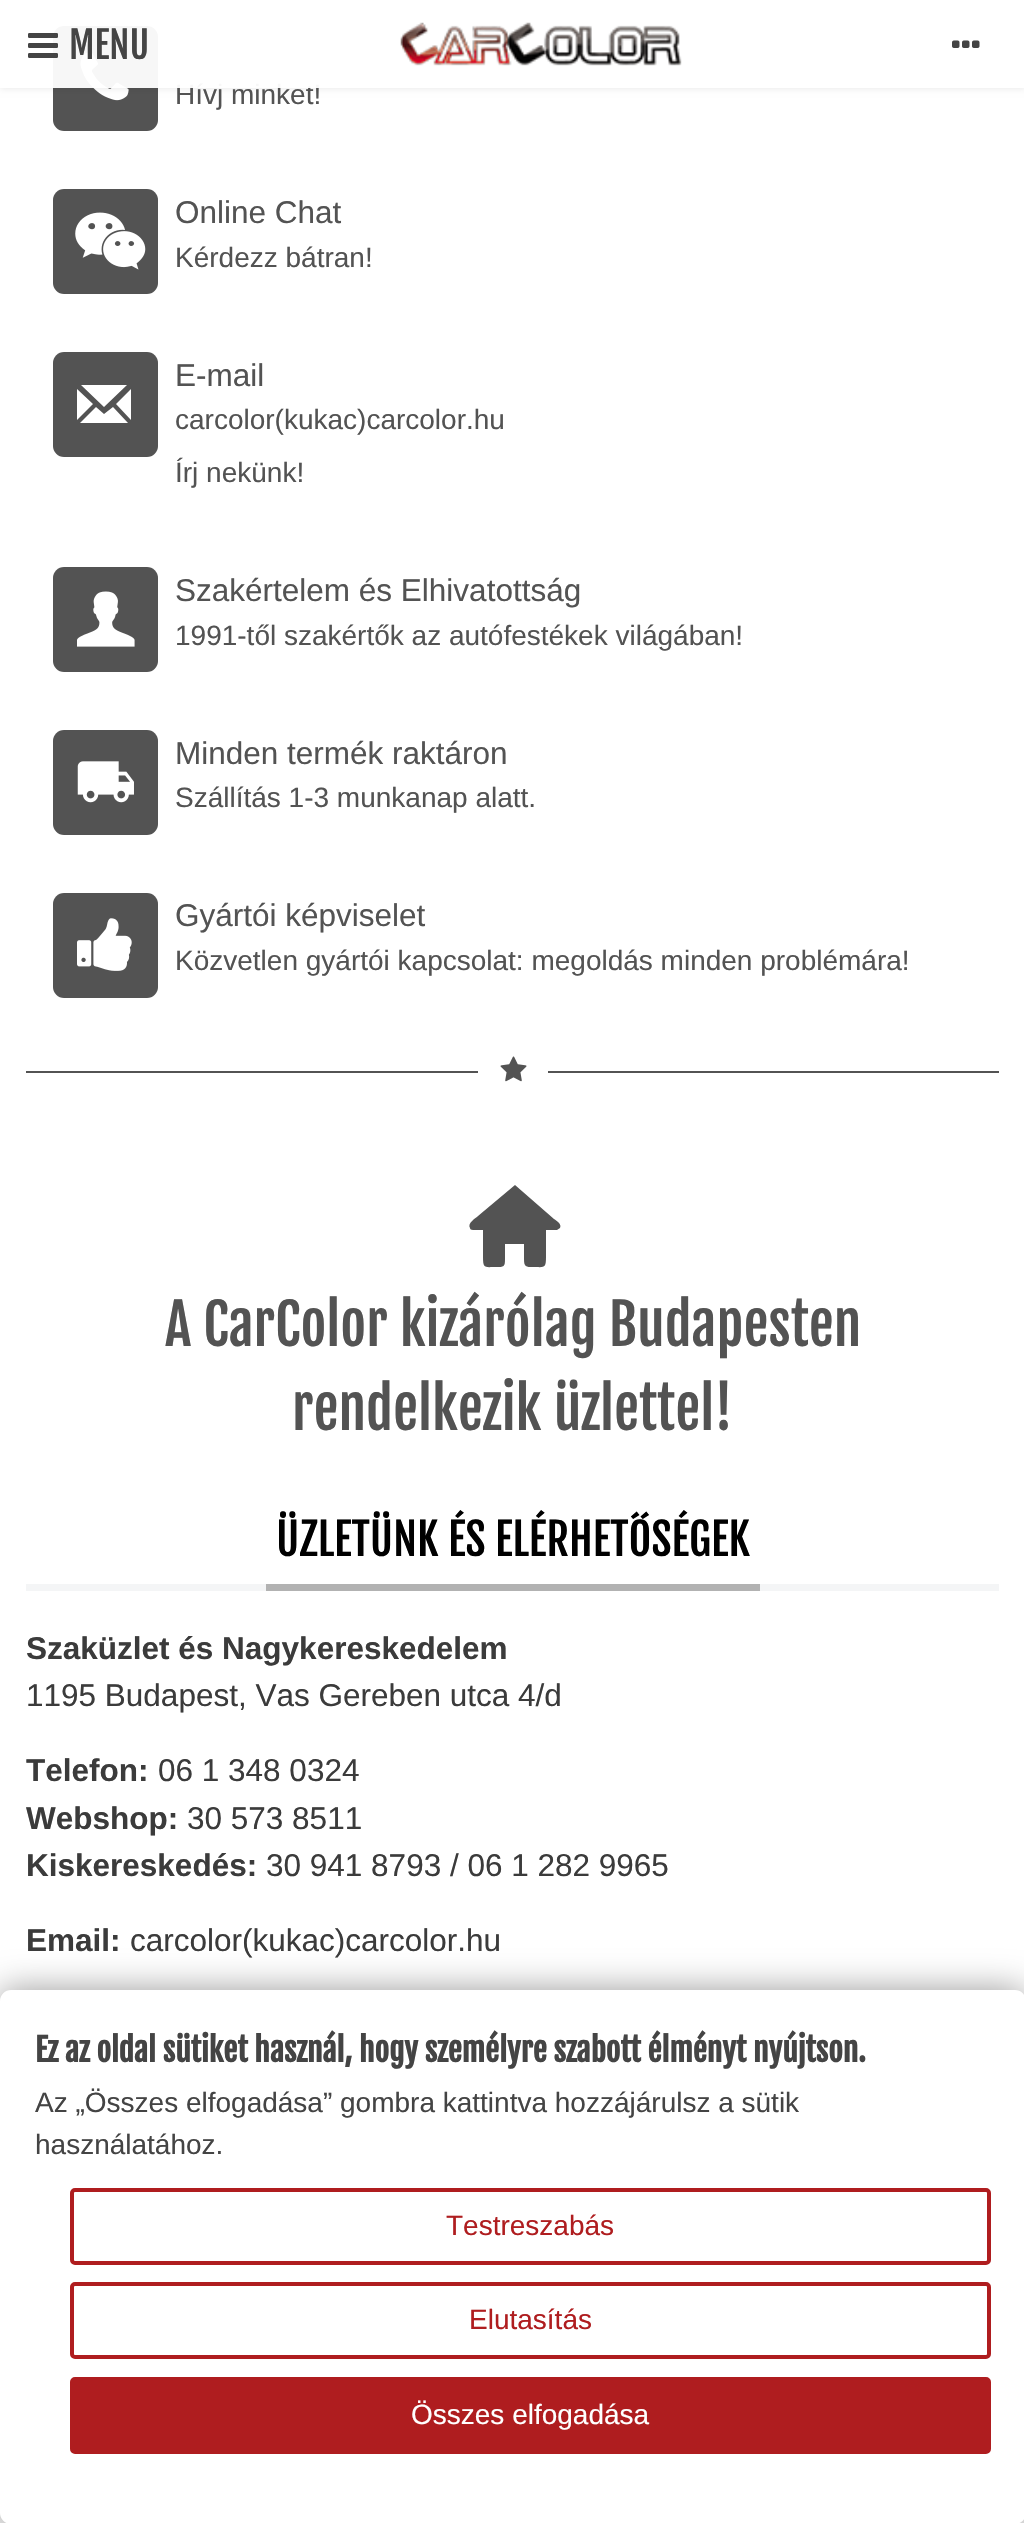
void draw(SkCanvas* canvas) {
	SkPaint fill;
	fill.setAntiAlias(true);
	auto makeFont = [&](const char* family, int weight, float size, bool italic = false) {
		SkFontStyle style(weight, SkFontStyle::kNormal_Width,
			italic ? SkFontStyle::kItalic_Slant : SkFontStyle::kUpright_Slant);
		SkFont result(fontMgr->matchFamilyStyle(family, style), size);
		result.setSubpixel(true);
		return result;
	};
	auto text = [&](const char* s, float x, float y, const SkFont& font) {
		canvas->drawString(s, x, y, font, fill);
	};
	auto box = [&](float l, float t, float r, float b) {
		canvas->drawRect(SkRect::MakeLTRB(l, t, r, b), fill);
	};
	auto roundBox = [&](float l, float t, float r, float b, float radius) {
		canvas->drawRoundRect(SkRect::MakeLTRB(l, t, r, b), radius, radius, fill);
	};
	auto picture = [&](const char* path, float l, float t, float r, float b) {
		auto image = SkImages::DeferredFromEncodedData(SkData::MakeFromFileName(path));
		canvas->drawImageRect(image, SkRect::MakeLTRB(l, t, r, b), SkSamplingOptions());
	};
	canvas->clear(0xFFFFFFFF);
	fill.setColor(0xFF535353);
	roundBox(53, 26, 158, 131, 11);
	picture("image3.png", 80, 52, 129, 101);
	canvas->save();
	canvas->clipPath(SkPathBuilder(SkPathFillType::kEvenOdd).moveTo(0, 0).lineTo(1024, 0).lineTo(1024, 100).lineTo(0, 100).close().moveTo(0, 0).lineTo(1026, 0).lineTo(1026, 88).lineTo(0, 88).close().detach(), true);
	fill.setColor(0x1A000000);
	fill.setMaskFilter(SkMaskFilter::MakeBlur(kNormal_SkBlurStyle, 3.5f));
	canvas->drawRect(SkRect::MakeLTRB(0, 0, 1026, 88), fill);
	fill.setMaskFilter(nullptr);
	canvas->restore();
	fill.setColor(0xFF535353);
	roundBox(53, 189, 158, 294, 11);
	picture("image4.png", 75, 212, 146, 270);
	roundBox(53, 352, 158, 457, 11);
	fill.setColor(0xFFFFFFFF);
	canvas->drawPath(SkPathBuilder().moveTo(113, 407).lineTo(128, 423).lineTo(80, 423).lineTo(96, 407).lineTo(104, 414).close().moveTo(81, 385).lineTo(127, 385).lineTo(104, 407).close().moveTo(116, 404).lineTo(131, 389).lineTo(131, 420).close().moveTo(77, 420).lineTo(77, 389).lineTo(93, 404).close().detach(), fill);
	fill.setColor(0xFF535353);
	roundBox(53, 567, 158, 672, 11);
	picture("image5.png", 77, 591, 135, 647);
	roundBox(53, 730, 158, 835, 11);
	picture("image6.png", 77, 761, 134, 803);
	roundBox(53, 893, 158, 998, 11);
	picture("image7.png", 77, 918, 132, 971);
	box(26, 1071, 478, 1073);
	picture("image8.png", 500, 1056, 527, 1082);
	box(548, 1071, 999, 1073);
	canvas->drawPath(SkPathBuilder().moveTo(515, 1185).lineTo(554, 1219).cubicTo(557, 1221, 562, 1224, 560, 1228).lineTo(557, 1230).lineTo(546, 1230).lineTo(546, 1257).cubicTo(546, 1269, 544, 1267, 533, 1267).cubicTo(526, 1267, 524, 1267, 524, 1259).lineTo(524, 1244).lineTo(505, 1244).lineTo(505, 1259).cubicTo(505, 1267, 504, 1267, 496, 1267).cubicTo(485, 1267, 483, 1269, 483, 1257).lineTo(483, 1230).lineTo(473, 1230).cubicTo(471, 1230, 470, 1229, 470, 1228).cubicTo(467, 1223, 476, 1218, 478, 1216).close().detach(), fill);
	fill.setColor(0xFFF4F5F6);
	box(26, 1584, 999, 1591);
	fill.setColor(0xFFB2B2B2);
	box(266, 1584, 760, 1591);
	fill.setColor(0xFFF2F2F2);
	box(0, 2513, 7, 2523);
	box(1019, 2519, 1024, 2523);
	fill.setColor(0x66000000);
	fill.setMaskFilter(SkMaskFilter::MakeBlur(kNormal_SkBlurStyle, 17.5f));
	canvas->drawRoundRect(SkRect::MakeLTRB(0, 1990, 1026, 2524), 11, 11, fill);
	fill.setMaskFilter(nullptr);
	fill.setColor(0xFFFFFFFF);
	roundBox(0, 1990, 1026, 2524, 11);
	fill.setStyle(SkPaint::kStroke_Style);
	fill.setStrokeWidth(4);
	fill.setColor(0xFFAF1D1F);
	canvas->drawRoundRect(SkRect::MakeLTRB(72, 2190, 989, 2263), 3, 3, fill);
	canvas->drawRoundRect(SkRect::MakeLTRB(72, 2284, 989, 2357), 3, 3, fill);
	fill.setStyle(SkPaint::kFill_Style);
	canvas->drawRoundRect(SkRect::MakeLTRB(72, 2379, 989, 2452), 3, 3, fill);
	fill.setStyle(SkPaint::kStroke_Style);
	canvas->drawRoundRect(SkRect::MakeLTRB(72, 2379, 989, 2452), 3, 3, fill);
	auto font1 = makeFont("Liberation Sans", 400, 28);
	fill.setStyle(SkPaint::kFill_Style);
	fill.setColor(0xFF535353);
	text("Hívj minket!", 175, 104, font1);
	fill.setColor(0xF2FFFFFF);
	box(0, 26, 1024, 88);
	picture("image2.png", 952, 40, 980, 48);
	picture("image1.png", 400, 22, 682, 66);
	auto font2 = makeFont("Fjalla One", 400, 37);
	fill.setColor(0xFF444444);
	text("MENU", 69, 59, font2);
	picture("image0.png", 28, 33, 58, 58);
	auto font3 = makeFont("Liberation Sans", 400, 31.5f);
	fill.setColor(0xFF535353);
	text("Online Chat", 175, 223, font3);
	text("Kérdezz bátran!", 175, 267, font1);
	text("E-mail", 175, 386, font3);
	text("carcolor(kukac)carcolor.hu", 175, 429, font1);
	text("Írj nekünk!", 175, 482, font1);
	text("Szakértelem és Elhivatottság", 175, 601, font3);
	text("1991-től szakértők az autófestékek világában!", 175, 645, font1);
	text("Minden termék raktáron", 175, 764, font3);
	text("Szállítás 1-3 munkanap alatt.", 175, 807, font1);
	text("Gyártói képviselet", 175, 926, font3);
	text("Közvetlen gyártói kapcsolat: megoldás minden problémára!", 175, 970, font1);
	auto font4 = makeFont("Fjalla One", 400, 56);
	text("A CarColor kizárólag Budapesten", 165, 1346, font4);
	text("rendelkezik üzlettel!", 292, 1430, font4);
	auto font5 = makeFont("Fjalla One", 400, 43.75f);
	fill.setColor(0xFF000000);
	text("ÜZLETÜNK ÉS ELÉRHETŐSÉGEK", 276, 1556, font5);
	auto font6 = makeFont("Liberation Sans", 700, 31.5f);
	fill.setColor(0xFF3B3B3B);
	text("Szaküzlet és Nagykereskedelem", 26, 1659, font6);
	text("1195 Budapest, Vas Gereben utca 4/d", 26, 1706, font3);
	text("Telefon:", 26, 1781, font6);
	text("06 1 348 0324", 158, 1781, font3);
	text("Webshop:", 26, 1829, font6);
	text("30 573 8511", 187, 1829, font3);
	text("Kiskereskedés:", 26, 1876, font6);
	text("30 941 8793 / 06 1 282 9965", 266, 1876, font3);
	text("Email:", 26, 1951, font6);
	text("carcolor(kukac)carcolor.hu", 130, 1951, font3);
	auto font7 = makeFont("Fjalla One", 700, 31.5f);
	fill.setColor(0xFF444444);
	text("Ez az oldal sütiket használ, hogy személyre szabott élményt nyújtson.", 35, 2062, font7);
	text("Az „Összes elfogadása” gombra kattintva hozzájárulsz a sütik", 35, 2112, font1);
	text("használatához.", 35, 2154, font1);
	fill.setColor(0xFFAF1D1F);
	text("Testreszabás", 446, 2235, font1);
	text("Elutasítás", 469, 2329, font1);
	fill.setColor(0xFFFFFFFF);
	text("Összes elfogadása", 411, 2424, font1);
}
